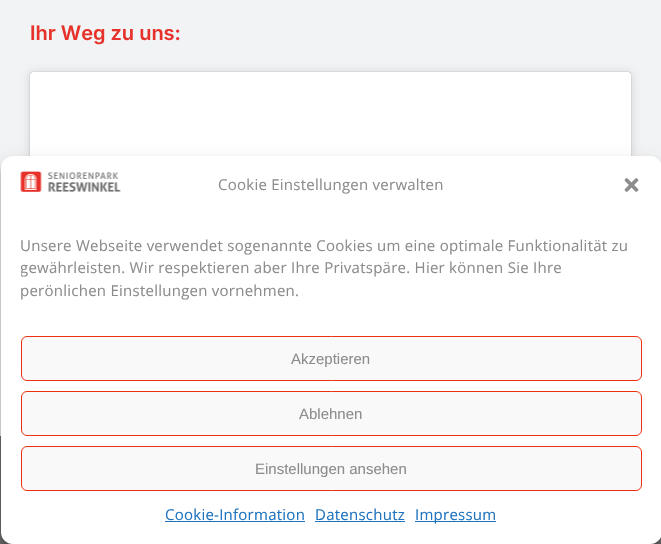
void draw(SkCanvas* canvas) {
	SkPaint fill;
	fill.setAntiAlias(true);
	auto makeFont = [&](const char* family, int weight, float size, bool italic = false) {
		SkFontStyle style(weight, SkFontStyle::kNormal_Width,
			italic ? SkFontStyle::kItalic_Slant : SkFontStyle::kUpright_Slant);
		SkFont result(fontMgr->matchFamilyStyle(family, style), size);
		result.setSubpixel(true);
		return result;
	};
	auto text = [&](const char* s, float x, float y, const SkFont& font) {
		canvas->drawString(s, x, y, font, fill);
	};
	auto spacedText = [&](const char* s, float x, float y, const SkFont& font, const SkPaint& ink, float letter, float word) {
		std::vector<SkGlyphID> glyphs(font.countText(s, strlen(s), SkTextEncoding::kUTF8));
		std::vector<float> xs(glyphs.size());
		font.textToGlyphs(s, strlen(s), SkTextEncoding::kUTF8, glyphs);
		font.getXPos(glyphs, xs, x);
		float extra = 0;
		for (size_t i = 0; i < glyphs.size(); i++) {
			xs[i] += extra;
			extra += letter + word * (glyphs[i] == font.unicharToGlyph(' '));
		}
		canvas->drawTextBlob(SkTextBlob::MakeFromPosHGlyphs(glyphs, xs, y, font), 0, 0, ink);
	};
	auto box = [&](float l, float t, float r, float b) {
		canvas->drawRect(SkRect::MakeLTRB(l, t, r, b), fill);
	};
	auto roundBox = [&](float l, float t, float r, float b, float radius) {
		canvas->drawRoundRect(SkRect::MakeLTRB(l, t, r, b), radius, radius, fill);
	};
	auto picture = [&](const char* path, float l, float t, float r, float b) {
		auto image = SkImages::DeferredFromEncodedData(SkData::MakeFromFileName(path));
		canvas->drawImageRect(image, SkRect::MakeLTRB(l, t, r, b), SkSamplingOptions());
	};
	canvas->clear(0xFFF2F3F5);
	fill.setColor(0x26000000);
	fill.setMaskFilter(SkMaskFilter::MakeBlur(kNormal_SkBlurStyle, 5));
	canvas->drawRoundRect(SkRect::MakeLTRB(30, 73, 631, 373), 3, 3, fill);
	fill.setMaskFilter(nullptr);
	fill.setColor(0x80000000);
	fill.setMaskFilter(SkMaskFilter::MakeBlur(kNormal_SkBlurStyle, 0.5f));
	canvas->drawRoundRect(SkRect::MakeLTRB(30, 72, 631, 372), 3, 3, fill);
	fill.setMaskFilter(nullptr);
	fill.setColor(0xFFFFFFFF);
	roundBox(30, 72, 631, 372, 3);
	fill.setColor(0xFF706F6F);
	box(0, 436, 661, 544);
	canvas->save();
	canvas->clipPath(SkPathBuilder(SkPathFillType::kEvenOdd).moveTo(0, 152).lineTo(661, 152).lineTo(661, 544).lineTo(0, 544).close().moveTo(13, 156).lineTo(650, 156).cubicTo(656.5f, 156, 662, 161.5f, 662, 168).lineTo(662, 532).cubicTo(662, 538.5f, 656.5f, 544, 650, 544).lineTo(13, 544).cubicTo(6.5f, 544, 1, 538.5f, 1, 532).lineTo(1, 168).cubicTo(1, 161.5f, 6.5f, 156, 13, 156).close().detach(), true);
	fill.setColor(0x3B000000);
	fill.setMaskFilter(SkMaskFilter::MakeBlur(kNormal_SkBlurStyle, 3));
	canvas->drawRoundRect(SkRect::MakeLTRB(1, 162, 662, 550), 12, 12, fill);
	fill.setMaskFilter(nullptr);
	canvas->restore();
	canvas->save();
	canvas->clipPath(SkPathBuilder(SkPathFillType::kEvenOdd).moveTo(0, 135).lineTo(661, 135).lineTo(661, 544).lineTo(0, 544).close().moveTo(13, 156).lineTo(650, 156).cubicTo(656.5f, 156, 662, 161.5f, 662, 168).lineTo(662, 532).cubicTo(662, 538.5f, 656.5f, 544, 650, 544).lineTo(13, 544).cubicTo(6.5f, 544, 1, 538.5f, 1, 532).lineTo(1, 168).cubicTo(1, 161.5f, 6.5f, 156, 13, 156).close().detach(), true);
	fill.setColor(0x30000000);
	fill.setMaskFilter(SkMaskFilter::MakeBlur(kNormal_SkBlurStyle, 10));
	canvas->drawRoundRect(SkRect::MakeLTRB(1, 166, 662, 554), 12, 12, fill);
	fill.setMaskFilter(nullptr);
	canvas->restore();
	fill.setColor(0xFFFFFFFF);
	roundBox(1, 156, 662, 544, 12);
	picture("image0.png", 20, 171, 121, 192);
	picture("image1.png", 624, 178, 639, 192);
	fill.setColor(0xFFF9F9F9);
	canvas->drawRoundRect(SkRect::MakeLTRB(21.5f, 336.5f, 641.5f, 380.5f), 5.5f, 5.5f, fill);
	fill.setStyle(SkPaint::kStroke_Style);
	fill.setStrokeWidth(1);
	fill.setColor(0xFFEC310E);
	canvas->drawRoundRect(SkRect::MakeLTRB(21.5f, 336.5f, 641.5f, 380.5f), 5.5f, 5.5f, fill);
	fill.setStyle(SkPaint::kFill_Style);
	fill.setColor(0xFFF9F9F9);
	canvas->drawRoundRect(SkRect::MakeLTRB(21.5f, 391.5f, 641.5f, 435.5f), 5.5f, 5.5f, fill);
	fill.setStyle(SkPaint::kStroke_Style);
	fill.setColor(0xFFEC310E);
	canvas->drawRoundRect(SkRect::MakeLTRB(21.5f, 391.5f, 641.5f, 435.5f), 5.5f, 5.5f, fill);
	fill.setStyle(SkPaint::kFill_Style);
	fill.setColor(0xFFF9F9F9);
	canvas->drawRoundRect(SkRect::MakeLTRB(21.5f, 446.5f, 641.5f, 490.5f), 5.5f, 5.5f, fill);
	fill.setStyle(SkPaint::kStroke_Style);
	fill.setColor(0xFFEC310E);
	canvas->drawRoundRect(SkRect::MakeLTRB(21.5f, 446.5f, 641.5f, 490.5f), 5.5f, 5.5f, fill);
	fill.setStyle(SkPaint::kFill_Style);
	fill.setColor(0xFF1E73BE);
	box(165, 521, 305, 522);
	box(315, 521, 405, 522);
	box(415, 521, 496, 522);
	auto font1 = makeFont("Inter", 600, 20);
	fill.setColor(0xFFE6322A);
	text("Ihr Weg zu uns:", 30, 40, font1);
	auto font2 = makeFont("Open Sans", 400, 15);
	fill.setColor(0xFF8C8C8C);
	spacedText("Cookie Einstellungen verwalten", 218, 190, font2, fill, 0.25f, 0);
	spacedText("Unsere Webseite verwendet sogenannte Cookies um eine optimale Funktionalität zu", 20, 251, font2, fill, 0.25f, 0);
	canvas->save();
	canvas->clipRect(SkRect::MakeLTRB(21, 219, 642, 316));
	spacedText("gewährleisten. Wir respektieren aber Ihre Privatspäre. Hier können Sie Ihre", 20, 273, font2, fill, 0.25f, 0);
	canvas->restore();
	spacedText("perönlichen Einstellungen vornehmen.", 20, 296, font2, fill, 0.25f, 0);
	auto font3 = makeFont("Liberation Sans", 400, 15);
	text("Akzeptieren", 291, 364, font3);
	text("Ablehnen", 299, 419, font3);
	text("Einstellungen ansehen", 255, 474, font3);
	fill.setColor(0xFF1E73BE);
	spacedText("Cookie-Information", 165, 520, font2, fill, 0.25f, 0);
	spacedText("Datenschutz", 315, 520, font2, fill, 0.25f, 0);
	spacedText("Impressum", 415, 520, font2, fill, 0.25f, 0);
}
